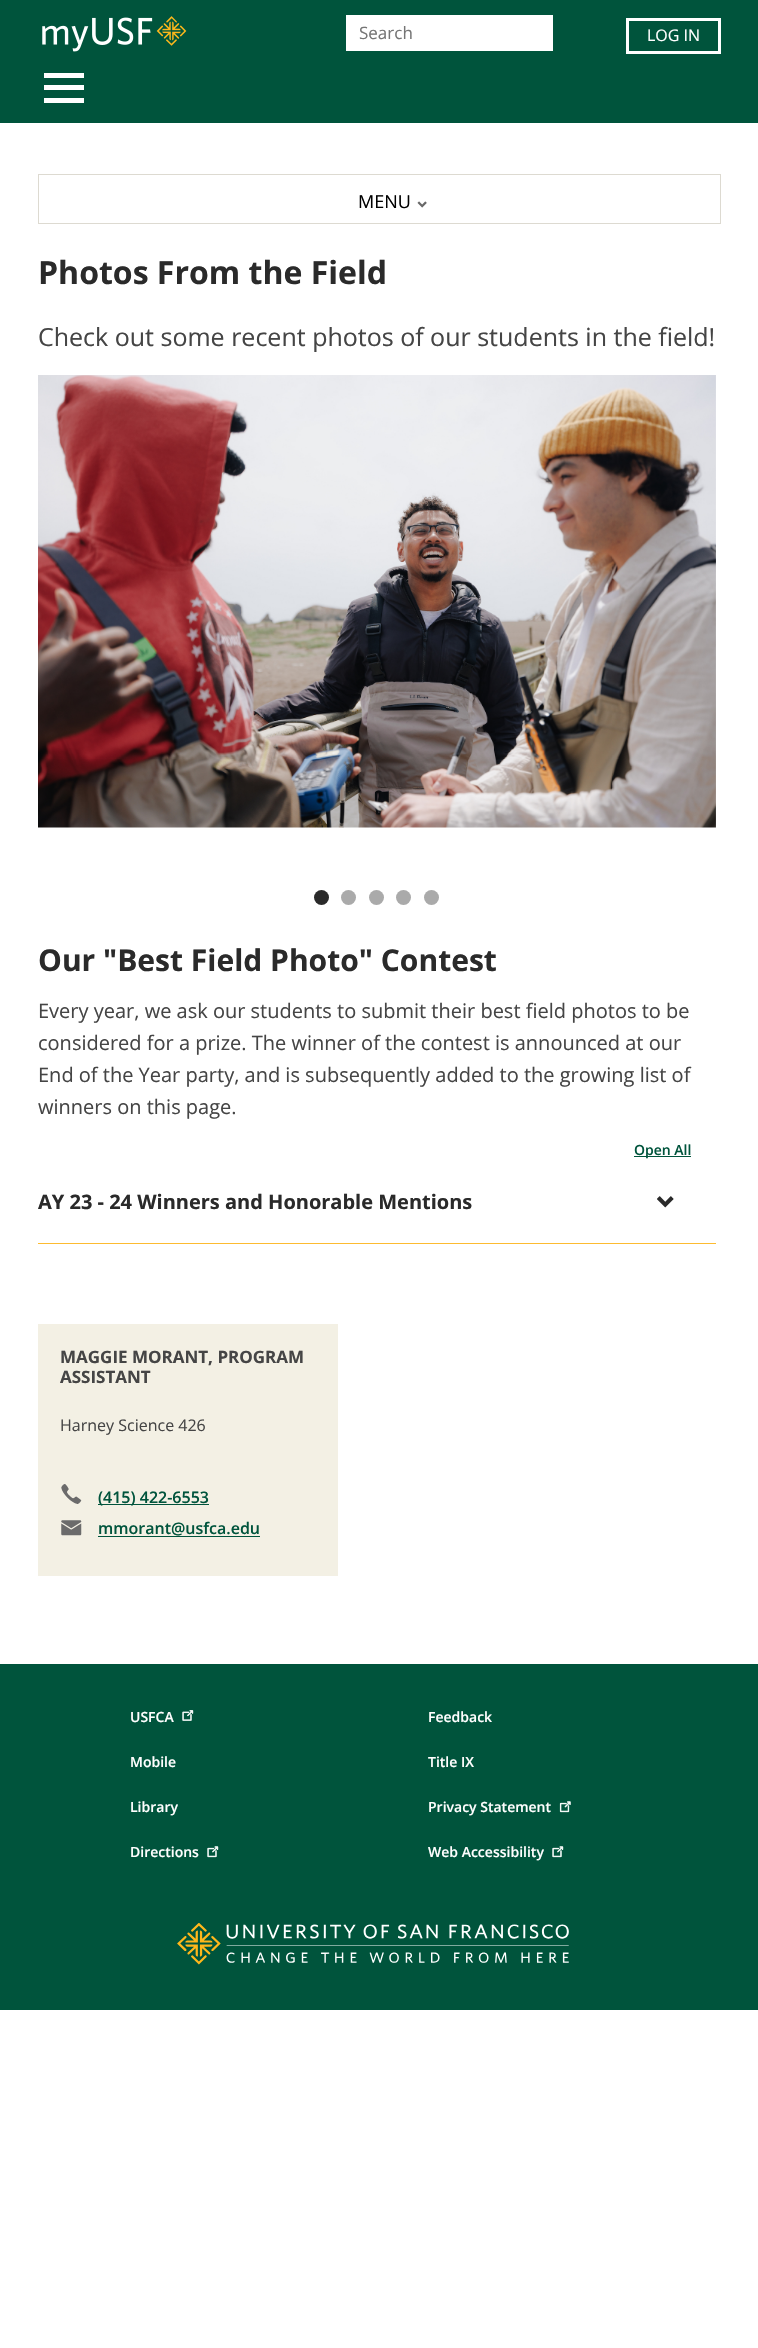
void draw(SkCanvas* canvas) {
	SkPaint fill;
	fill.setAntiAlias(true);
	auto makeFont = [&](const char* family, int weight, float size, bool italic = false) {
		SkFontStyle style(weight, SkFontStyle::kNormal_Width,
			italic ? SkFontStyle::kItalic_Slant : SkFontStyle::kUpright_Slant);
		SkFont result(fontMgr->matchFamilyStyle(family, style), size);
		result.setSubpixel(true);
		return result;
	};
	auto text = [&](const char* s, float x, float y, const SkFont& font) {
		canvas->drawString(s, x, y, font, fill);
	};
	auto box = [&](float l, float t, float r, float b) {
		canvas->drawRect(SkRect::MakeLTRB(l, t, r, b), fill);
	};
	auto picture = [&](const char* path, float l, float t, float r, float b) {
		auto image = SkImages::DeferredFromEncodedData(SkData::MakeFromFileName(path));
		canvas->drawImageRect(image, SkRect::MakeLTRB(l, t, r, b), SkSamplingOptions());
	};
	canvas->clear(0xFFFFFFFF);
	fill.setColor(0xFF00543C);
	box(0, 0, 758, 123);
	picture("image0.png", 42, 16, 187, 52);
	fill.setColor(0xFFFFFFFF);
	box(346, 15, 553, 51);
	fill.setStyle(SkPaint::kStroke_Style);
	fill.setStrokeWidth(3);
	canvas->drawRect(SkRect::MakeLTRB(627.5f, 19.5f, 719.5f, 52.5f), fill);
	fill.setStyle(SkPaint::kFill_Style);
	box(44, 73, 84, 78);
	box(44, 85, 84, 90);
	box(44, 98, 84, 103);
	fill.setStyle(SkPaint::kStroke_Style);
	fill.setStrokeWidth(1);
	fill.setColor(0xFFDDDAD1);
	canvas->drawRect(SkRect::MakeLTRB(38.5f, 174.5f, 720.5f, 223.5f), fill);
	picture("image1.png", 417, 201, 427, 208);
	picture("image2.png", 38, 375, 716, 828);
	fill.setStyle(SkPaint::kFill_Style);
	fill.setColor(0xFF2A2A2A);
	canvas->drawCircle(321.5f, 897.5f, 7.5f, fill);
	fill.setColor(0xFFAAAAAA);
	canvas->drawCircle(348.5f, 897.5f, 7.5f, fill);
	canvas->drawCircle(376.5f, 897.5f, 7.5f, fill);
	canvas->drawCircle(403.5f, 897.5f, 7.5f, fill);
	canvas->drawCircle(431.5f, 897.5f, 7.5f, fill);
	fill.setColor(0xFF00543C);
	box(634, 1156, 691, 1157);
	fill.setColor(0xFFFDBB30);
	box(38, 1243, 716, 1244);
	picture("image3.png", 657, 1196, 674, 1208);
	fill.setColor(0xFFF3F0E4);
	box(38, 1324, 338, 1576);
	picture("image4.png", 61, 1484, 82, 1504);
	fill.setColor(0xFF00543C);
	box(98, 1504, 209, 1505);
	picture("image5.png", 61, 1520, 82, 1536);
	box(98, 1536, 260, 1537);
	box(0, 1664, 758, 2010);
	picture("image6.png", 182, 1710, 194, 1721);
	picture("image7.png", 559, 1801, 571, 1813);
	picture("image8.png", 207, 1846, 219, 1858);
	picture("image8.png", 552, 1846, 564, 1858);
	picture("image9.png", 177, 1923, 569, 1965);
	auto font1 = makeFont("Open Sans", 400, 17);
	fill.setColor(0xFF757575);
	text("Search", 359, 39, font1);
	auto font2 = makeFont("Open Sans", 400, 16);
	fill.setColor(0xFFFFFFFF);
	text("LOG IN", 647, 41, font2);
	auto font3 = makeFont("Open Sans", 400, 18);
	fill.setColor(0xFF000000);
	text("MENU", 358, 208, font3);
	auto font4 = makeFont("Open Sans", 700, 32);
	fill.setColor(0xFF2A2A2A);
	text("Photos From the Field", 38, 284, font4);
	auto font5 = makeFont("Open Sans", 400, 25);
	fill.setColor(0xFF454545);
	text("Check out some recent photos of our students in the field!", 38, 346, font5);
	auto font6 = makeFont("Open Sans", 700, 30);
	fill.setColor(0xFF2A2A2A);
	text("Our \"Best Field Photo\" Contest", 38, 971, font6);
	auto font7 = makeFont("Open Sans", 400, 20);
	fill.setColor(0xFF454545);
	text("Every year, we ask our students to submit their best field photos to be", 38, 1018, font7);
	text("considered for a prize. The winner of the contest is announced at our", 38, 1050, font7);
	text("End of the Year party, and is subsequently added to the growing list of", 38, 1082, font7);
	text("winners on this page.", 38, 1114, font7);
	auto font8 = makeFont("Open Sans", 600, 14);
	fill.setColor(0xFF00543C);
	text("Open All", 634, 1155, font8);
	auto font9 = makeFont("Open Sans", 700, 20);
	fill.setColor(0xFF2A2A2A);
	text("AY 23 - 24 Winners and Honorable Mentions", 38, 1209, font9);
	auto font10 = makeFont("Open Sans", 700, 17);
	fill.setColor(0xFF454545);
	text("MAGGIE MORANT, PROGRAM", 60, 1363, font10);
	text("ASSISTANT", 60, 1383, font10);
	text("Harney Science 426", 60, 1431, font2);
	auto font11 = makeFont("Open Sans", 600, 16);
	fill.setColor(0xFF00543C);
	text("(415) 422-6553", 98, 1503, font11);
	text("mmorant@usfca.edu", 98, 1534, font11);
	fill.setColor(0xFFFFFFFF);
	text("USFCA", 130, 1722, font8);
	text("Feedback", 428, 1722, font8);
	text("Mobile", 130, 1767, font8);
	text("Title IX", 428, 1767, font8);
	text("Library", 130, 1812, font8);
	text("Privacy Statement", 428, 1812, font8);
	text("Directions", 130, 1857, font8);
	text("Web Accessibility", 428, 1857, font8);
}
